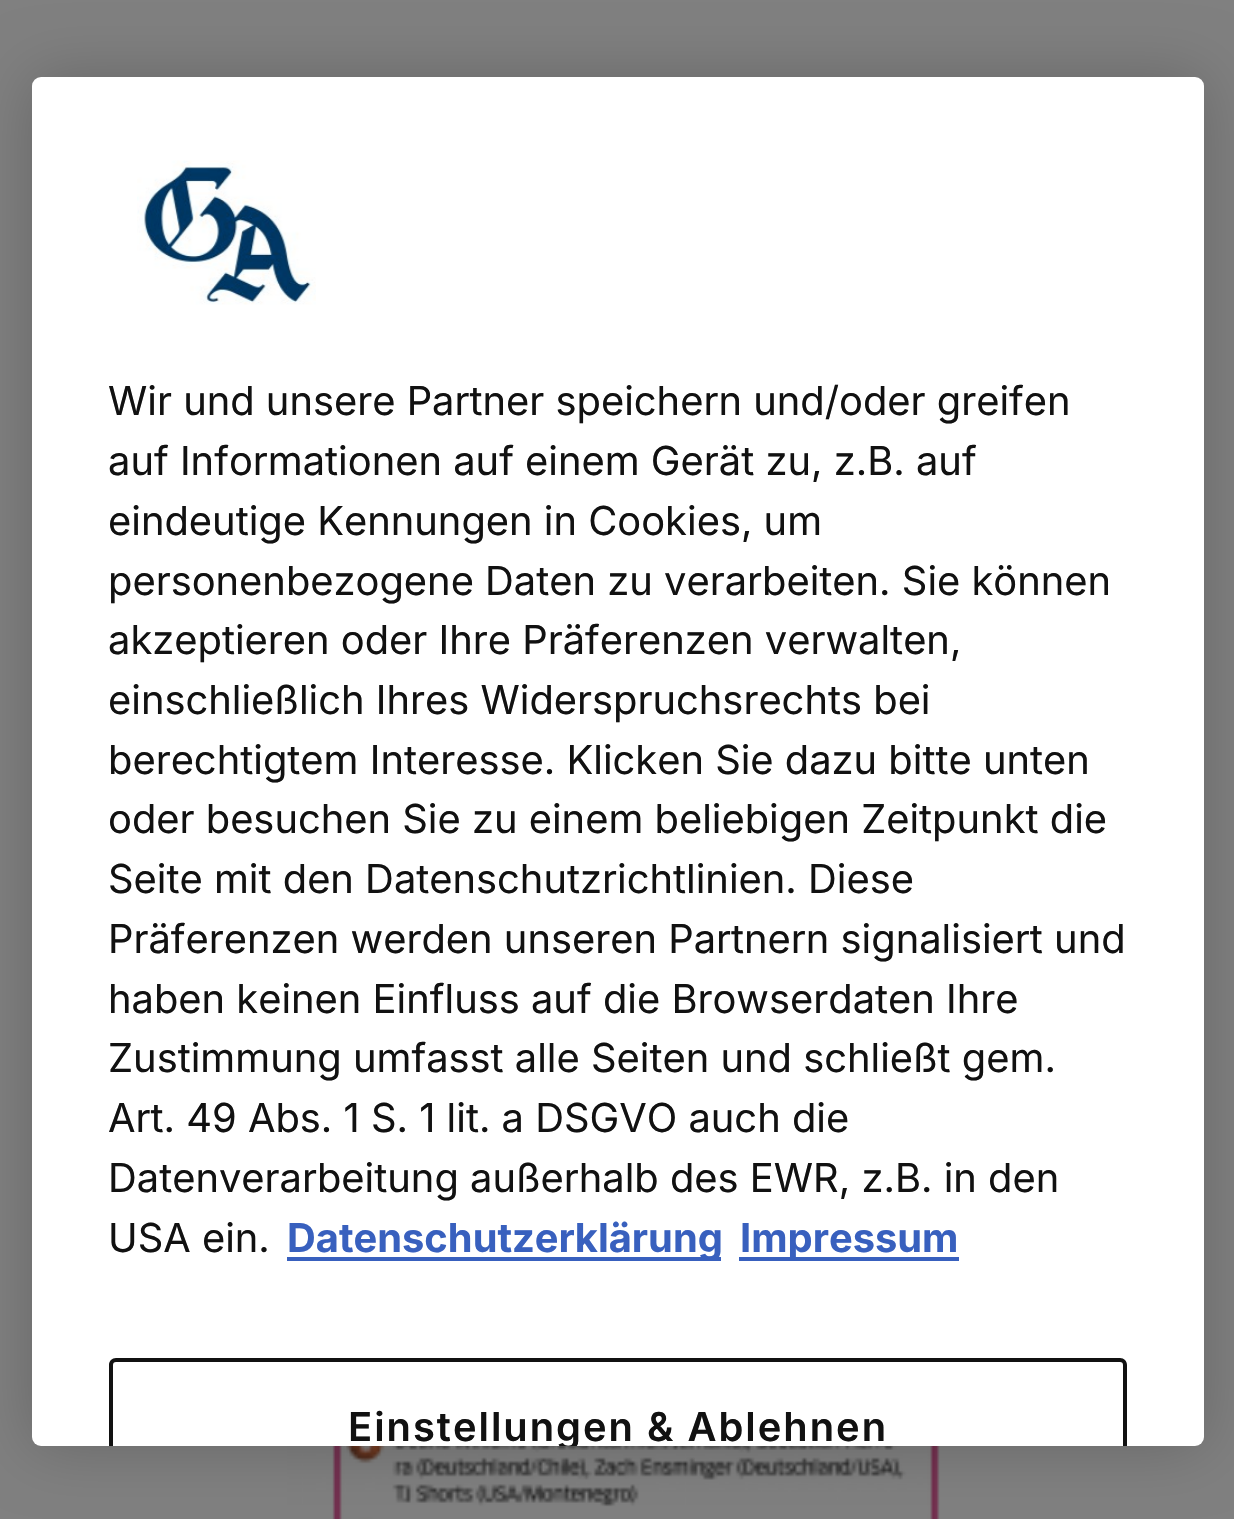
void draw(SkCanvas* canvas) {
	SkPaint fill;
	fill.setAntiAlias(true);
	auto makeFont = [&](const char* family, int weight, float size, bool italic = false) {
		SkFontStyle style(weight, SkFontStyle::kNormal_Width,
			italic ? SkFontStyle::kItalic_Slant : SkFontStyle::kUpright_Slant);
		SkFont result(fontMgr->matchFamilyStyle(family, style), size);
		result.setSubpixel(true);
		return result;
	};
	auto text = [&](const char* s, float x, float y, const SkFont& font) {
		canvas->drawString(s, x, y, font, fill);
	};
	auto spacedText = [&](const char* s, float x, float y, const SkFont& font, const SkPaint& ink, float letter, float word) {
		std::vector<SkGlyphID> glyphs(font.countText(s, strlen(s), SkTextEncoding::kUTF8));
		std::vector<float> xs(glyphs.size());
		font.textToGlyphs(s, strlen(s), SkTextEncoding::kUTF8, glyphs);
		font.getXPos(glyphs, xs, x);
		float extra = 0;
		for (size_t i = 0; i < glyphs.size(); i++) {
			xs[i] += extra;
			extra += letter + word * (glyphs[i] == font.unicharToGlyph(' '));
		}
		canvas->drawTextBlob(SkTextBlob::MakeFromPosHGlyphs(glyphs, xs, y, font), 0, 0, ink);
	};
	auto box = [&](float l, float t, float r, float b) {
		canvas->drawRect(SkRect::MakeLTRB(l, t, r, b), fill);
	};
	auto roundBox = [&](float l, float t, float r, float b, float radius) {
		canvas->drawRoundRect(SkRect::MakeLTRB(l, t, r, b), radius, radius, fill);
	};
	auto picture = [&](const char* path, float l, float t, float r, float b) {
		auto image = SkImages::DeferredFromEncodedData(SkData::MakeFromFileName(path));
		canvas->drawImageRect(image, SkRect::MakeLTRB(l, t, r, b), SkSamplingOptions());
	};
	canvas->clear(0xFF808080);
	picture("image1.png", 287, 1446, 940, 1519);
	fill.setColor(0x33000000);
	fill.setMaskFilter(SkMaskFilter::MakeBlur(kNormal_SkBlurStyle, 31.5f));
	canvas->drawRoundRect(SkRect::MakeLTRB(32, 77, 1204, 1446), 9, 9, fill);
	fill.setMaskFilter(nullptr);
	fill.setColor(0xFFFFFFFF);
	roundBox(32, 77, 1204, 1446, 9);
	picture("image0.png", 137, 160, 316, 305);
	fill.setColor(0xFF3860BE);
	box(287, 1257, 721, 1261);
	box(739, 1257, 959, 1261);
	fill.setColor(0xFF111111);
	canvas->drawPath(SkPathBuilder().moveTo(116, 1358).cubicTo(112, 1358, 109, 1361, 109, 1365).lineTo(109, 1446).lineTo(113, 1446).lineTo(113, 1365).cubicTo(113, 1363, 114, 1362, 116, 1362).lineTo(1120, 1362).cubicTo(1122, 1362, 1123, 1363, 1123, 1365).lineTo(1123, 1446).lineTo(1127, 1446).lineTo(1127, 1365).cubicTo(1127, 1361, 1124, 1358, 1120, 1358).close().detach(), fill);
	auto font1 = makeFont("Inter", 400, 39.85f);
	text("Wir und unsere Partner speichern und/oder greifen", 108, 415, font1);
	text("auf Informationen auf einem Gerät zu, z.B. auf", 108, 475, font1);
	text("eindeutige Kennungen in Cookies, um", 108, 535, font1);
	text("personenbezogene Daten zu verarbeiten. Sie können", 108, 595, font1);
	text("akzeptieren oder Ihre Präferenzen verwalten,", 108, 654, font1);
	text("einschließlich Ihres Widerspruchsrechts bei", 108, 714, font1);
	text("berechtigtem Interesse. Klicken Sie dazu bitte unten", 108, 774, font1);
	text("oder besuchen Sie zu einem beliebigen Zeitpunkt die", 108, 833, font1);
	text("Seite mit den Datenschutzrichtlinien. Diese", 108, 893, font1);
	text("Präferenzen werden unseren Partnern signalisiert und", 108, 953, font1);
	text("haben keinen Einfluss auf die Browserdaten Ihre", 108, 1013, font1);
	text("Zustimmung umfasst alle Seiten und schließt gem.", 108, 1072, font1);
	text("Art. 49 Abs. 1 S. 1 lit. a DSGVO auch die", 108, 1132, font1);
	text("Datenverarbeitung außerhalb des EWR, z.B. in den", 108, 1192, font1);
	text("USA ein.", 108, 1252, font1);
	auto font2 = makeFont("Inter", 700, 39.85f);
	fill.setColor(0xFF3860BE);
	text("Datenschutzerklärung", 287, 1252, font2);
	text("Impressum", 740, 1252, font2);
	canvas->save();
	canvas->clipPath(SkPathBuilder().moveTo(41, 77).lineTo(1195, 77).cubicTo(1200, 77, 1204, 81, 1204, 86).lineTo(1204, 1437).cubicTo(1204, 1442, 1200, 1446, 1195, 1446).lineTo(41, 1446).cubicTo(36, 1446, 32, 1442, 32, 1437).lineTo(32, 86).cubicTo(32, 81, 36, 77, 41, 77).close().detach(), true);
	auto font3 = makeFont("Inter", 600, 39.85f);
	fill.setColor(0xFF111111);
	spacedText("Einstellungen & Ablehnen", 348, 1441, font3, fill, 2, 0);
	canvas->restore();
}
